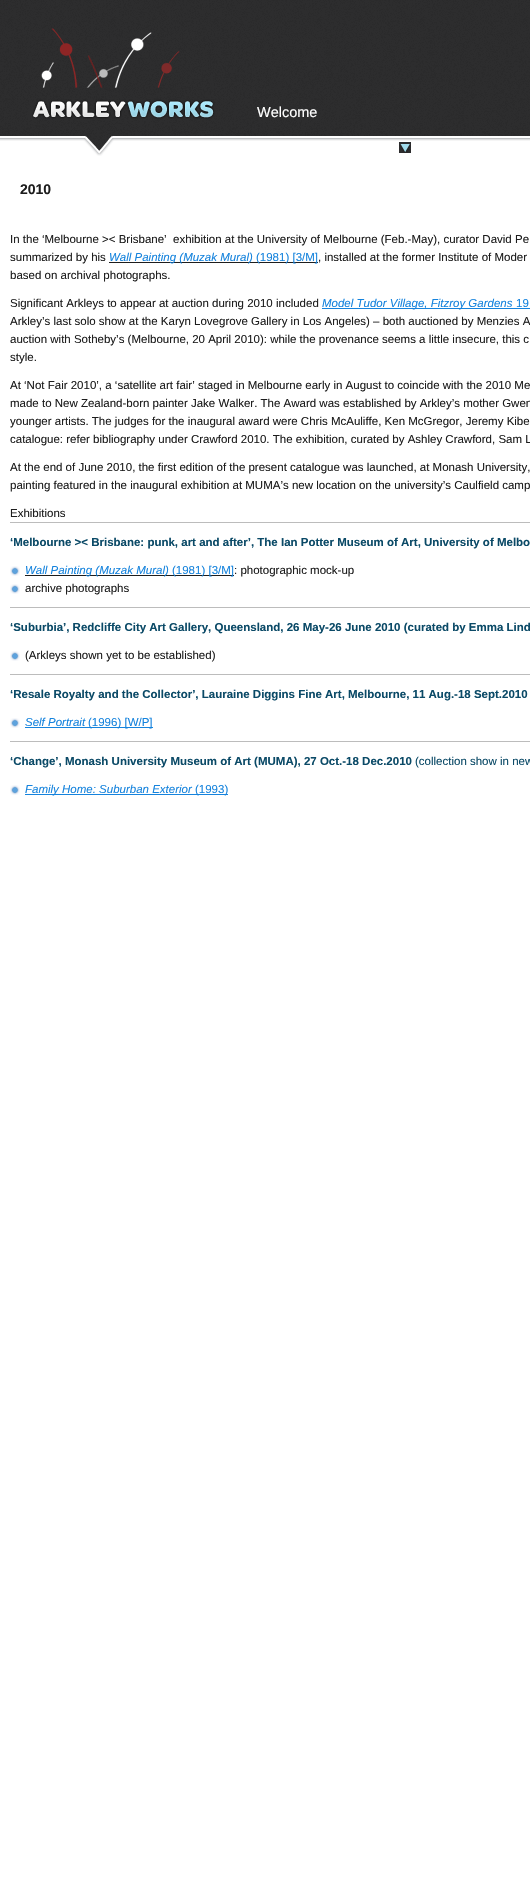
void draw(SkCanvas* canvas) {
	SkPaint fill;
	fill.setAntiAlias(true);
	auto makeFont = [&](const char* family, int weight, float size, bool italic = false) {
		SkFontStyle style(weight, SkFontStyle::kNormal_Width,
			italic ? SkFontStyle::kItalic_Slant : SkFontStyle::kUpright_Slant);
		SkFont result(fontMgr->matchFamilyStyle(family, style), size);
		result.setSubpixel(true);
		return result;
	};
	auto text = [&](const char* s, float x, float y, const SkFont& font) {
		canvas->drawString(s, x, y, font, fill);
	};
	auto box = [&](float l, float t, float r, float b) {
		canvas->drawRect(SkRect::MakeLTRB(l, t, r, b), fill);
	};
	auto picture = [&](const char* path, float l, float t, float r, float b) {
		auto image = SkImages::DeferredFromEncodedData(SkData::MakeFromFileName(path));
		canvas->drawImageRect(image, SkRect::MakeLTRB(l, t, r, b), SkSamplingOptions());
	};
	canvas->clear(0xFFFFFFFF);
	picture("image0.png", 0, 0, 530, 141);
	picture("image1.png", 32, 28, 215, 156);
	picture("image2.png", 399, 142, 411, 153);
	fill.setColor(0xFF1D1D1D);
	box(109, 262, 318, 263);
	fill.setColor(0xFF1583DD);
	box(322, 308, 512, 309);
	box(512, 308, 530, 309);
	fill.setColor(0xFFBCBCBC);
	box(10, 522, 530, 523);
	picture("image3.png", 10, 566, 20, 576);
	fill.setColor(0xFF1D1D1D);
	box(25, 575, 234, 576);
	picture("image3.png", 10, 584, 20, 594);
	fill.setColor(0xFFBCBCBC);
	box(10, 607, 530, 608);
	picture("image3.png", 10, 651, 20, 661);
	box(10, 674, 530, 675);
	picture("image3.png", 10, 718, 20, 728);
	fill.setColor(0xFF1583DD);
	box(25, 727, 153, 728);
	fill.setColor(0xFFBCBCBC);
	box(10, 741, 530, 742);
	picture("image3.png", 10, 785, 20, 795);
	fill.setColor(0xFF1583DD);
	box(25, 794, 192, 795);
	box(192, 794, 228, 795);
	auto font1 = makeFont("Liberation Sans", 400, 14.5f);
	fill.setColor(0xFFFFFFFF);
	text("Welcome", 257, 117, font1);
	auto font2 = makeFont("Liberation Sans", 700, 14);
	fill.setColor(0xFF1D1D1D);
	text("2010", 20, 194, font2);
	auto font3 = makeFont("Liberation Sans", 400, 11.5f);
	text("In the ‘Melbourne >< Brisbane’  exhibition at the University of Melbourne (Feb.-May), curator David Pe", 10, 243, font3);
	text("summarized by his", 10, 261, font3);
	auto font4 = makeFont("Liberation Sans", 400, 11.5f, true);
	fill.setColor(0xFF1583DD);
	text("Wall Painting (Muzak Mural)", 109, 261, font4);
	text("(1981) [3/M]", 256, 261, font3);
	fill.setColor(0xFF1D1D1D);
	text(", installed at the former Institute of Moder", 318, 261, font3);
	text("based on archival photographs.", 10, 279, font3);
	text("Significant Arkleys to appear at auction during 2010 included", 10, 307, font3);
	fill.setColor(0xFF1583DD);
	text("Model Tudor Village, Fitzroy Gardens", 322, 307, font4);
	text("19", 516, 307, font3);
	fill.setColor(0xFF1D1D1D);
	text("Arkley’s last solo show at the Karyn Lovegrove Gallery in Los Angeles) – both auctioned by Menzies A", 10, 325, font3);
	text("auction with Sotheby’s (Melbourne, 20 April 2010): while the provenance seems a little insecure, this c", 10, 343, font3);
	text("style.", 10, 361, font3);
	text("At ‘Not Fair 2010’, a ‘satellite art fair’ staged in Melbourne early in August to coincide with the 2010 Me", 10, 389, font3);
	text("made to New Zealand-born painter Jake Walker. The Award was established by Arkley’s mother Gwen", 10, 407, font3);
	text("younger artists. The judges for the inaugural award were Chris McAuliffe, Ken McGregor, Jeremy Kibe", 10, 425, font3);
	text("catalogue: refer bibliography under Crawford 2010. The exhibition, curated by Ashley Crawford, Sam L", 10, 443, font3);
	text("At the end of June 2010, the first edition of the present catalogue was launched, at Monash University,", 10, 471, font3);
	text("painting featured in the inaugural exhibition at MUMA’s new location on the university’s Caulfield camp", 10, 489, font3);
	text("Exhibitions", 10, 517, font3);
	auto font5 = makeFont("Liberation Sans", 700, 11.5f);
	fill.setColor(0xFF0B4A67);
	text("‘Melbourne >< Brisbane: punk, art and after’, The Ian Potter Museum of Art, University of Melbo", 10, 546, font5);
	fill.setColor(0xFF1583DD);
	text("Wall Painting (Muzak Mural)", 25, 574, font4);
	text("(1981) [3/M]", 172, 574, font3);
	fill.setColor(0xFF1D1D1D);
	text(": photographic mock-up", 234, 574, font3);
	text("archive photographs", 25, 592, font3);
	fill.setColor(0xFF0B4A67);
	text("‘Suburbia’, Redcliffe City Art Gallery, Queensland, 26 May-26 June 2010 (curated by Emma Lind", 10, 631, font5);
	fill.setColor(0xFF1D1D1D);
	text("(Arkleys shown yet to be established)", 25, 659, font3);
	fill.setColor(0xFF0B4A67);
	text("‘Resale Royalty and the Collector’, Lauraine Diggins Fine Art, Melbourne, 11 Aug.-18 Sept.2010", 10, 698, font5);
	fill.setColor(0xFF1583DD);
	text("Self Portrait", 25, 726, font4);
	text("(1996) [W/P]", 88, 726, font3);
	fill.setColor(0xFF0B4A67);
	text("‘Change’, Monash University Museum of Art (MUMA), 27 Oct.-18 Dec.2010", 10, 765, font5);
	text("(collection show in new", 415, 765, font3);
	fill.setColor(0xFF1583DD);
	text("Family Home: Suburban Exterior", 25, 793, font4);
	text("(1993)", 195, 793, font3);
}
